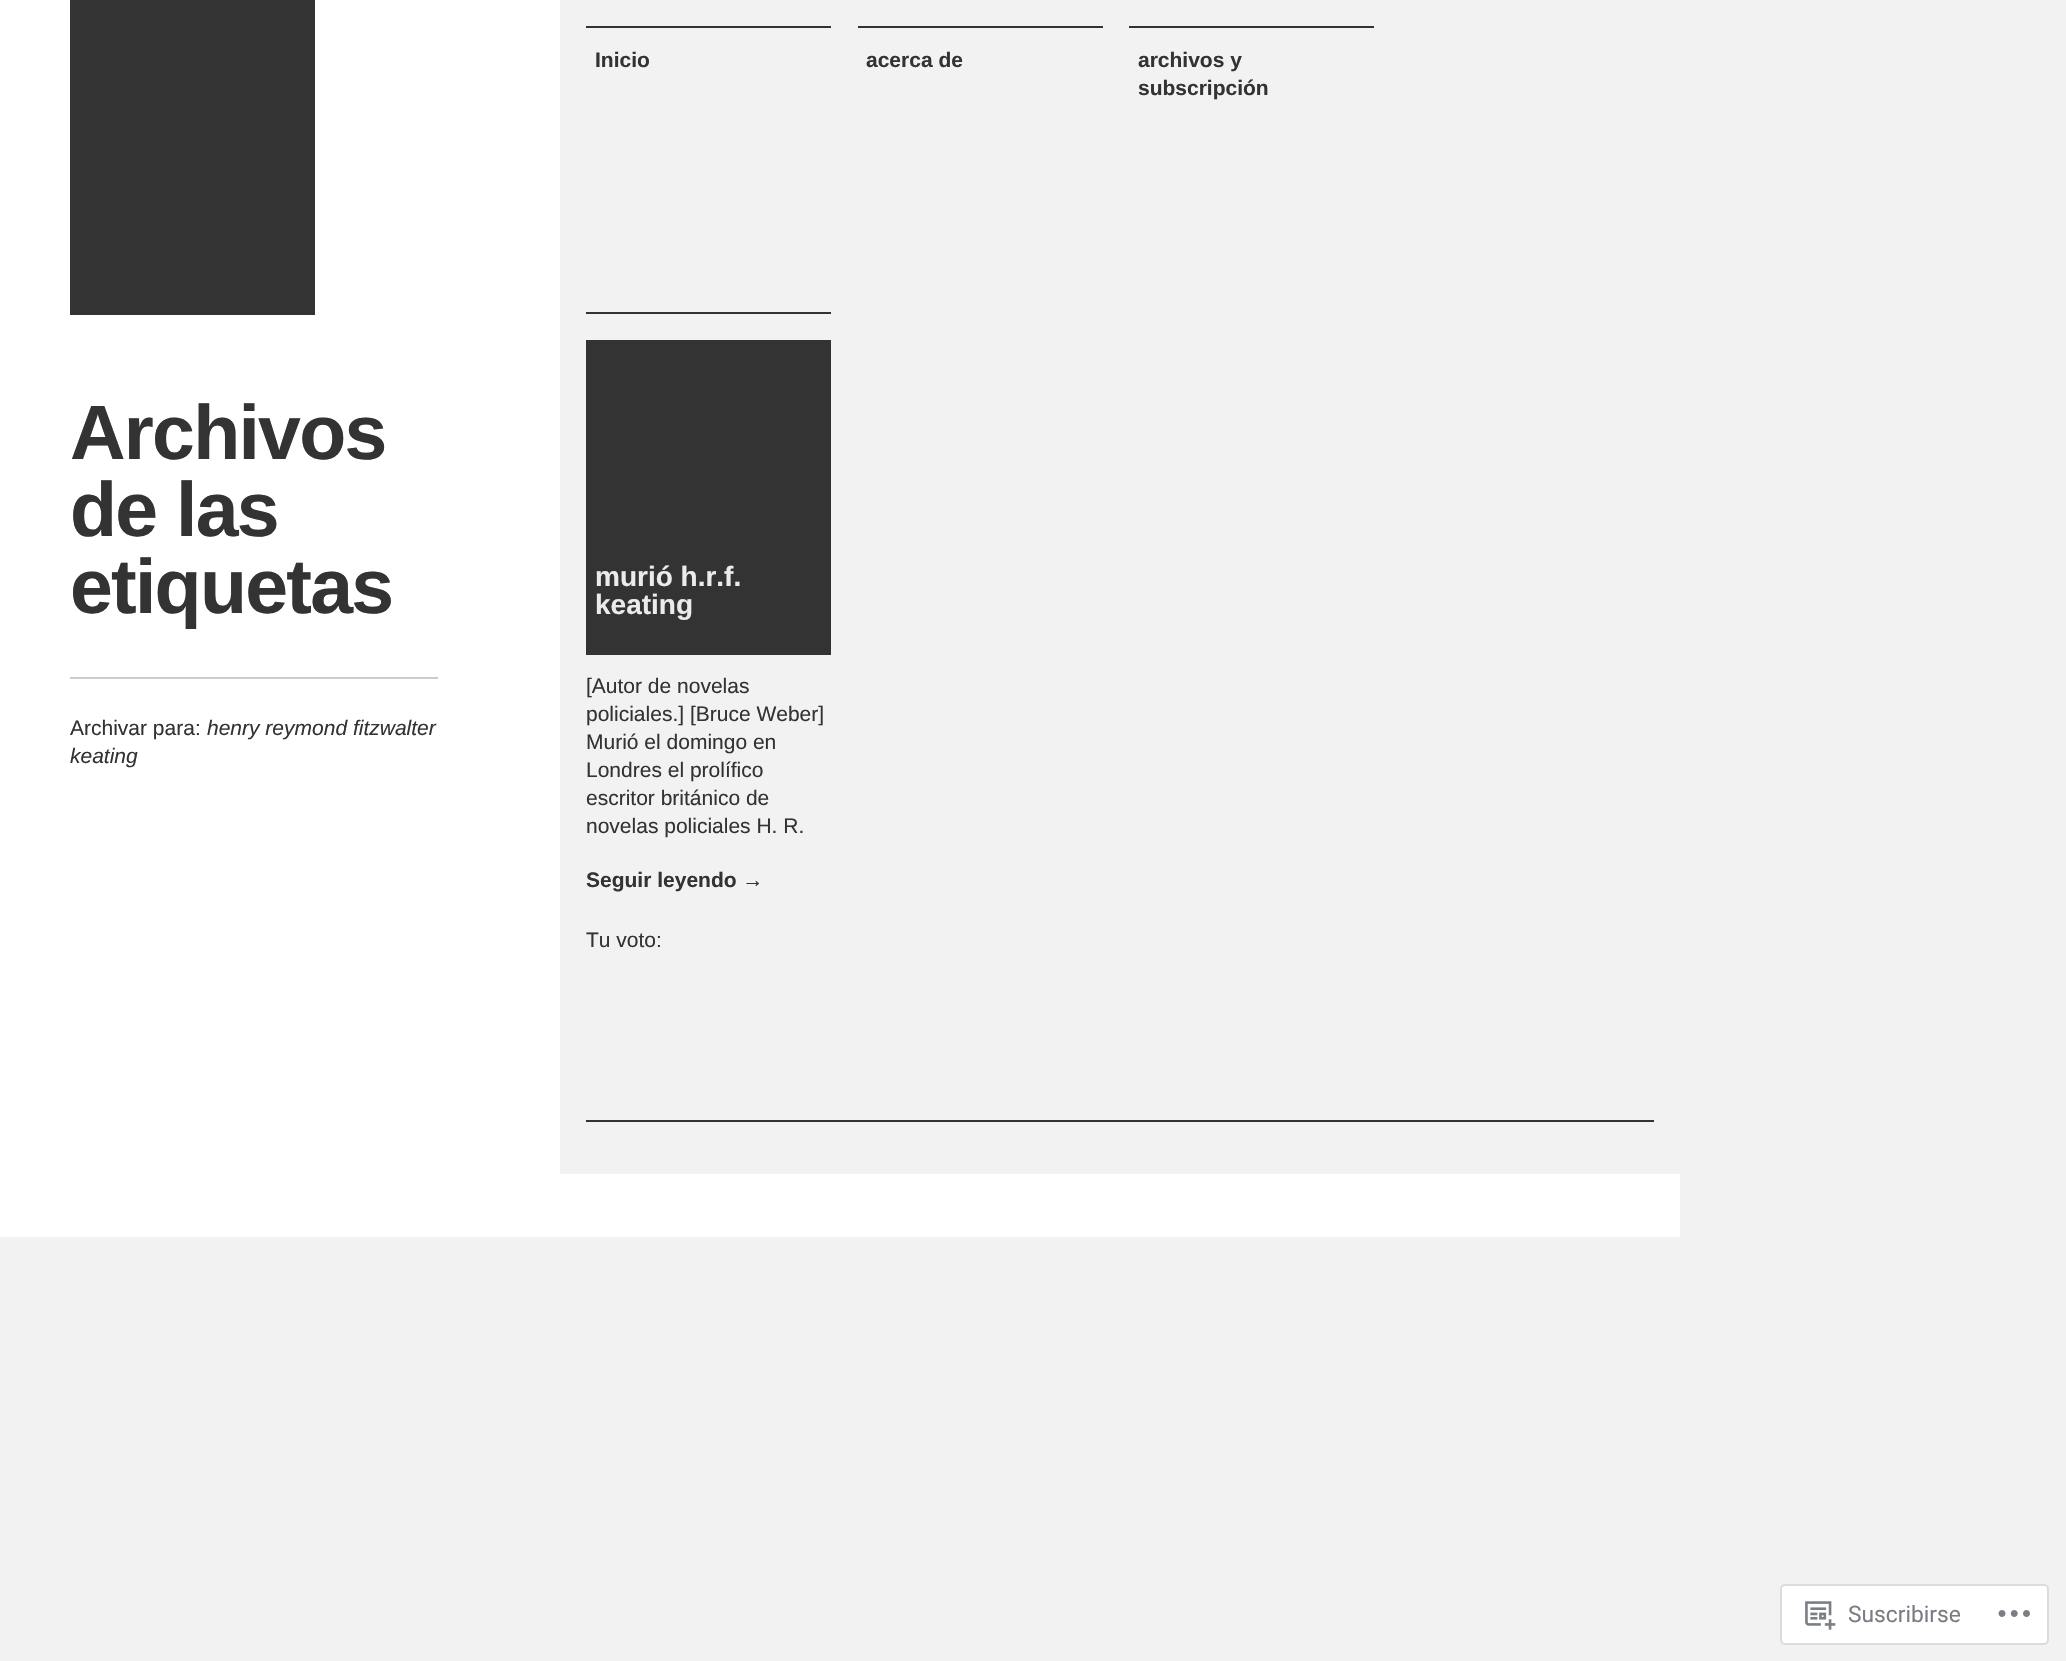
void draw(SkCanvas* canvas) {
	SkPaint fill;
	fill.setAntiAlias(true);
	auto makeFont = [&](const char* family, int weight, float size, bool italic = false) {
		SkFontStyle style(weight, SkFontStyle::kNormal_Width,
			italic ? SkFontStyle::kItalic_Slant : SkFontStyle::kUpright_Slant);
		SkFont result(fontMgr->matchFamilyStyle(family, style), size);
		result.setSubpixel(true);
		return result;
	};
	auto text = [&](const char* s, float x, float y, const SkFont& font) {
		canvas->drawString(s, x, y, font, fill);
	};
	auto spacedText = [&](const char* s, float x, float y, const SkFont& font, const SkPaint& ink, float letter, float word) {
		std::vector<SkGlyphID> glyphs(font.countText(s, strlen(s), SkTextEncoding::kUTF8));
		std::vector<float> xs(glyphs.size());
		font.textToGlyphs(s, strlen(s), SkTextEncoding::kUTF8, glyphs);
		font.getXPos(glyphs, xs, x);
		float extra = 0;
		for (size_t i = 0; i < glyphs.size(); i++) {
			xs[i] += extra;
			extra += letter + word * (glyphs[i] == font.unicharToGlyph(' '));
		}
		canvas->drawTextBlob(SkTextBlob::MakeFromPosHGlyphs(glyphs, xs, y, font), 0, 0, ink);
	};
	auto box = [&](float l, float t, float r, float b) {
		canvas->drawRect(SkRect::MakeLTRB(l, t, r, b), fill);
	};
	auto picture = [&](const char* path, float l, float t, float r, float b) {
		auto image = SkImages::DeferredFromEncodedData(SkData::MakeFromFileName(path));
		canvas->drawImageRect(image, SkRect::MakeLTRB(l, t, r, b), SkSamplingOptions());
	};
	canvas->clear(0xFFF2F2F2);
	fill.setColor(0xFFFFFFFF);
	box(0, 0, 560, 1174);
	fill.setColor(0xFF333333);
	box(70, 0, 315, 315);
	fill.setColor(0xFFCCCCCC);
	box(70, 677, 438, 679);
	fill.setColor(0xFF333333);
	box(586, 26, 831, 28);
	box(858, 26, 1103, 28);
	box(1129, 26, 1374, 28);
	box(586, 312, 831, 314);
	box(586, 340, 831, 655);
	box(586, 1120, 1654, 1122);
	fill.setColor(0xFFFFFFFF);
	box(0, 1174, 1680, 1237);
	canvas->drawRoundRect(SkRect::MakeLTRB(1781, 1585, 2048, 1644), 4, 4, fill);
	fill.setStyle(SkPaint::kStroke_Style);
	fill.setStrokeWidth(2);
	fill.setColor(0xFFDCDCDE);
	canvas->drawRoundRect(SkRect::MakeLTRB(1781, 1585, 2048, 1644), 4, 4, fill);
	picture("image0.png", 1805, 1601, 1836, 1630);
	picture("image1.png", 1998, 1610, 2030, 1617);
	auto font1 = makeFont("Liberation Sans", 700, 77);
	fill.setStyle(SkPaint::kFill_Style);
	fill.setColor(0xFF333333);
	spacedText("Archivos", 70, 459, font1, fill, -1.75f, 0);
	spacedText("de las", 70, 536, font1, fill, -1.75f, 0);
	spacedText("etiquetas", 70, 613, font1, fill, -1.75f, 0);
	auto font2 = makeFont("Liberation Sans", 400, 21);
	text("Archivar para:", 70, 735, font2);
	auto font3 = makeFont("Liberation Sans", 400, 21, true);
	text("henry reymond fitzwalter", 207, 735, font3);
	text("keating", 70, 763, font3);
	auto font4 = makeFont("Liberation Sans", 700, 21);
	text("Inicio", 595, 67, font4);
	text("acerca de", 866, 67, font4);
	text("archivos y", 1138, 67, font4);
	text("subscripción", 1138, 95, font4);
	auto font5 = makeFont("Liberation Sans", 700, 28);
	fill.setColor(0xFFEBEBEB);
	text("murió h.r.f.", 595, 586, font5);
	text("keating", 595, 614, font5);
	fill.setColor(0xFF333333);
	text("[Autor de novelas", 586, 693, font2);
	text("policiales.] [Bruce Weber]", 586, 721, font2);
	text("Murió el domingo en", 586, 749, font2);
	text("Londres el prolífico", 586, 777, font2);
	text("escritor británico de", 586, 805, font2);
	text("novelas policiales H. R.", 586, 833, font2);
	text("Seguir leyendo →", 586, 887, font4);
	text("Tu voto:", 586, 947, font2);
	auto font6 = makeFont("Roboto", 400, 22.75f);
	fill.setColor(0xFF7A7E84);
	text("Suscribirse", 1848, 1622, font6);
}
